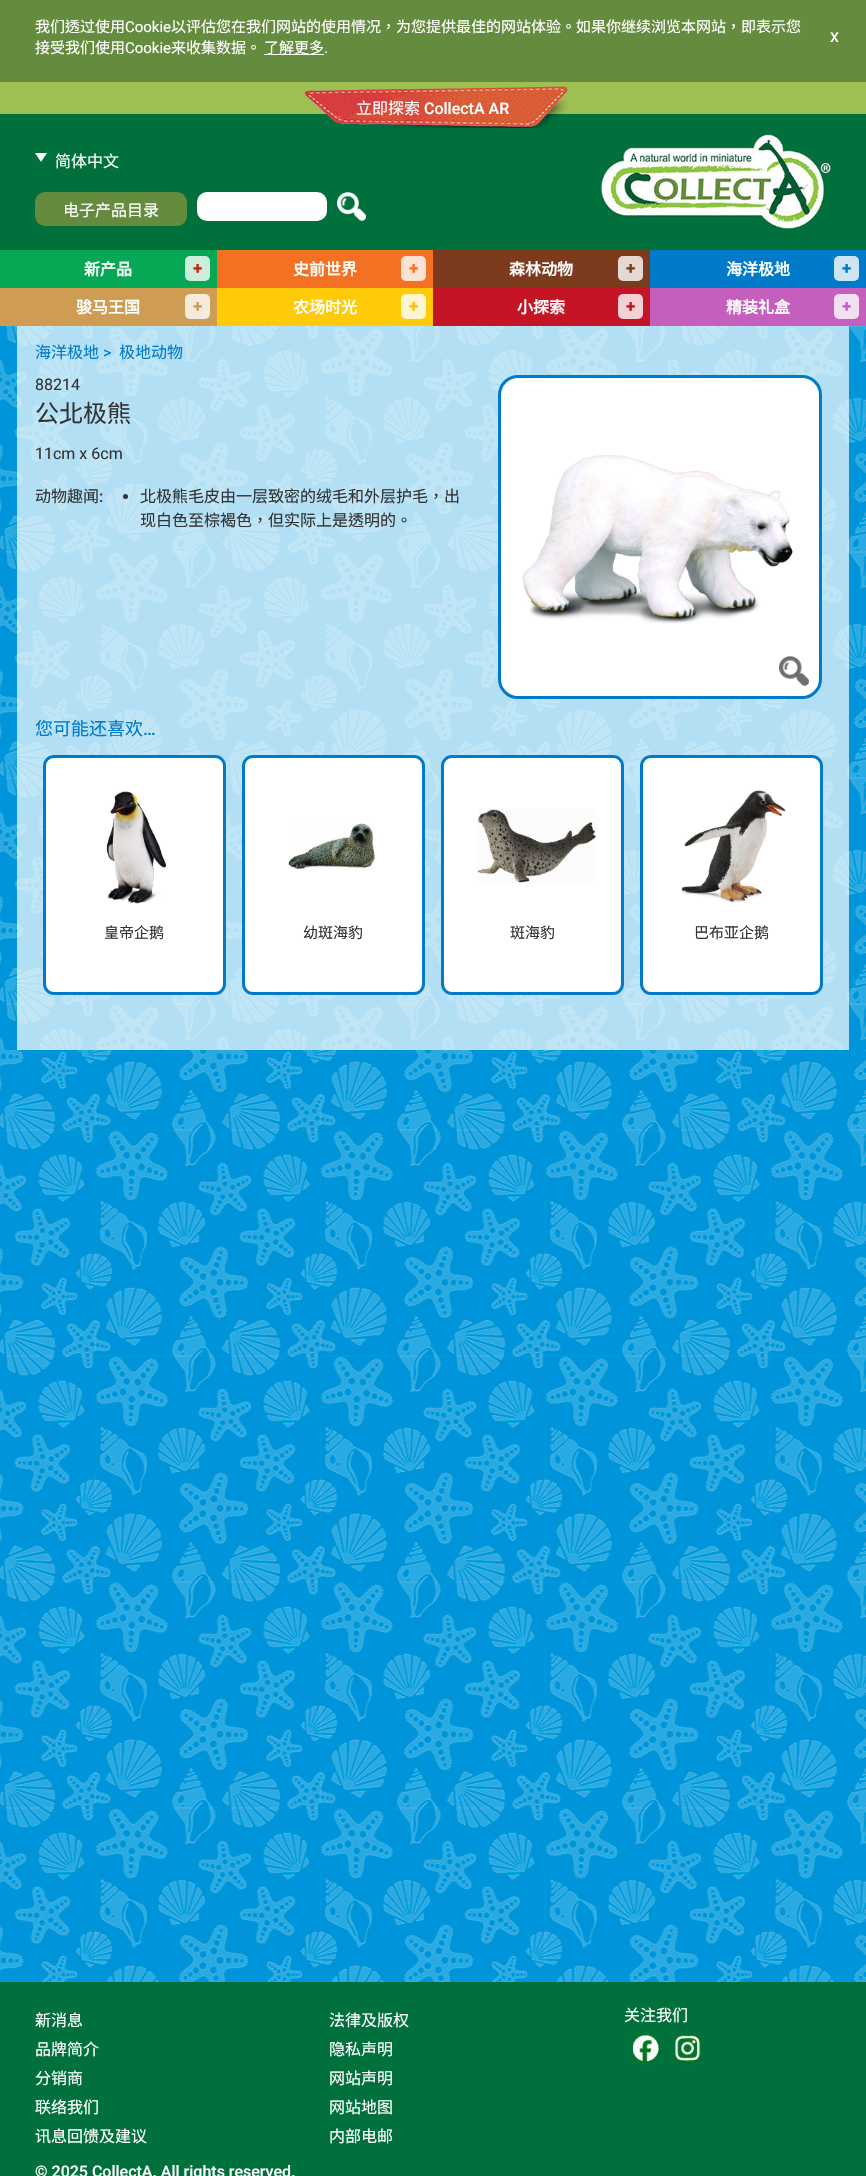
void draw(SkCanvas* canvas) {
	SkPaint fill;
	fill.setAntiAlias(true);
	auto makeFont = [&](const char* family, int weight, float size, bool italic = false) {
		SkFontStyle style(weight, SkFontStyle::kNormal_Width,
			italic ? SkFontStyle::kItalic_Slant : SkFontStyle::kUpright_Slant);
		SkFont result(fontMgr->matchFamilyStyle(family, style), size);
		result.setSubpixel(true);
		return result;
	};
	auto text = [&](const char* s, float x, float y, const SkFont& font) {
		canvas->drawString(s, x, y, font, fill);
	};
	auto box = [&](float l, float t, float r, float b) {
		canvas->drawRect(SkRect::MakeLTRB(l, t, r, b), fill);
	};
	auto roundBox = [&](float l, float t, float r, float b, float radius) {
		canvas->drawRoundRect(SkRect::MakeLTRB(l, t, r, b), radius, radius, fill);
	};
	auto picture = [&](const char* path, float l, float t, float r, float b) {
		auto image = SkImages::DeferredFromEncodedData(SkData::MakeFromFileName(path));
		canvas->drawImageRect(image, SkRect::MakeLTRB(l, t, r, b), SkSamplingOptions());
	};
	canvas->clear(0xFFFFFFFF);
	picture("image0.png", 0, 1050, 866, 1982);
	fill.setColor(0xFF658B3E);
	box(0, 0, 866, 82);
	fill.setColor(0xFFFFFFFF);
	box(264, 54, 324, 55);
	fill.setColor(0xFF9EC052);
	box(0, 82, 866, 114);
	fill.setColor(0xFF00703C);
	box(0, 114, 866, 250);
	picture("image1.png", 304, 86, 568, 128);
	picture("image2.png", 35, 153, 47, 162);
	fill.setColor(0xFF658B3E);
	roundBox(35, 192, 187, 226, 10);
	fill.setColor(0xFFFFFFFF);
	roundBox(197, 192, 327, 221, 10);
	picture("image3.png", 337, 192, 366, 221);
	picture("image4.png", 601, 134, 831, 230);
	fill.setColor(0xFF06A755);
	box(0, 250, 217, 288);
	fill.setColor(0xFFCDEDDD);
	roundBox(185, 256, 210, 281, 5);
	fill.setColor(0xFFF47022);
	box(217, 250, 433, 288);
	fill.setColor(0xFFFDE2D3);
	roundBox(401, 256, 426, 281, 5);
	fill.setColor(0xFF7C3B1C);
	box(433, 250, 650, 288);
	fill.setColor(0xFFE5D8D2);
	roundBox(618, 256, 643, 281, 5);
	fill.setColor(0xFF007AC9);
	box(650, 250, 866, 288);
	fill.setColor(0xFFCCE4F4);
	roundBox(834, 256, 859, 281, 5);
	fill.setColor(0xFFCE9D53);
	box(0, 288, 217, 326);
	fill.setColor(0xFFF5EBDD);
	roundBox(185, 294, 210, 319, 5);
	fill.setColor(0xFFFFCB08);
	box(217, 288, 433, 326);
	fill.setColor(0xFFFFF5CE);
	roundBox(401, 294, 426, 319, 5);
	fill.setColor(0xFFC41426);
	box(433, 288, 650, 326);
	fill.setColor(0xFFF3D0D4);
	roundBox(618, 294, 643, 319, 5);
	fill.setColor(0xFFC55FBD);
	box(650, 288, 866, 326);
	fill.setColor(0xFFF3DFF2);
	roundBox(834, 294, 859, 319, 5);
	picture("image5.png", 0, 326, 866, 1050);
	fill.setColor(0xFF333333);
	canvas->drawCircle(125.5f, 496.5f, 2.5f, fill);
	fill.setColor(0xFFFFFFFF);
	canvas->drawRoundRect(SkRect::MakeLTRB(499.5f, 376.5f, 820.5f, 697.5f), 18.5f, 18.5f, fill);
	fill.setStyle(SkPaint::kStroke_Style);
	fill.setStrokeWidth(3);
	fill.setColor(0xFF007AC9);
	canvas->drawRoundRect(SkRect::MakeLTRB(499.5f, 376.5f, 820.5f, 697.5f), 18.5f, 18.5f, fill);
	picture("image6.png", 522, 455, 793, 624);
	picture("image7.png", 779, 656, 809, 686);
	fill.setStyle(SkPaint::kFill_Style);
	fill.setColor(0xFFFFFFFF);
	canvas->drawRoundRect(SkRect::MakeLTRB(44.5f, 756.5f, 224.5f, 993.5f), 9.5f, 9.5f, fill);
	fill.setStyle(SkPaint::kStroke_Style);
	fill.setColor(0xFF007AC9);
	canvas->drawRoundRect(SkRect::MakeLTRB(44.5f, 756.5f, 224.5f, 993.5f), 9.5f, 9.5f, fill);
	picture("image8.png", 106, 791, 167, 904);
	fill.setStyle(SkPaint::kFill_Style);
	fill.setColor(0xFFFFFFFF);
	canvas->drawRoundRect(SkRect::MakeLTRB(243.5f, 756.5f, 423.5f, 993.5f), 9.5f, 9.5f, fill);
	fill.setStyle(SkPaint::kStroke_Style);
	fill.setColor(0xFF007AC9);
	canvas->drawRoundRect(SkRect::MakeLTRB(243.5f, 756.5f, 423.5f, 993.5f), 9.5f, 9.5f, fill);
	picture("image9.png", 288, 823, 376, 870);
	fill.setStyle(SkPaint::kFill_Style);
	fill.setColor(0xFFFFFFFF);
	canvas->drawRoundRect(SkRect::MakeLTRB(442.5f, 756.5f, 622.5f, 993.5f), 9.5f, 9.5f, fill);
	fill.setStyle(SkPaint::kStroke_Style);
	fill.setColor(0xFF007AC9);
	canvas->drawRoundRect(SkRect::MakeLTRB(442.5f, 756.5f, 622.5f, 993.5f), 9.5f, 9.5f, fill);
	picture("image10.png", 477, 809, 597, 883);
	fill.setStyle(SkPaint::kFill_Style);
	fill.setColor(0xFFFFFFFF);
	canvas->drawRoundRect(SkRect::MakeLTRB(641.5f, 756.5f, 821.5f, 993.5f), 9.5f, 9.5f, fill);
	fill.setStyle(SkPaint::kStroke_Style);
	fill.setColor(0xFF007AC9);
	canvas->drawRoundRect(SkRect::MakeLTRB(641.5f, 756.5f, 821.5f, 993.5f), 9.5f, 9.5f, fill);
	picture("image11.png", 681, 790, 786, 903);
	fill.setStyle(SkPaint::kFill_Style);
	fill.setColor(0xFF00703C);
	box(0, 1982, 866, 2176);
	picture("image12.png", 629, 2034, 660, 2065);
	picture("image13.png", 673, 2034, 703, 2065);
	auto font1 = makeFont("Noto Sans CJK HK", 400, 15);
	fill.setColor(0xFFFFFFFF);
	text("我们透过使用", 35, 32, font1);
	auto font2 = makeFont("Roboto", 400, 15);
	text("Cookie", 125, 32, font2);
	text("以评估您在我们网站的使用情况，为您提供最佳的网站体验。如果你继续浏览本网站，即表示您", 171, 32, font1);
	text("接受我们使用", 35, 53, font1);
	text("Cookie", 125, 53, font2);
	text("来收集数据。", 171, 53, font1);
	text("了解更多", 264, 53, font1);
	text(".", 324, 53, font2);
	auto font3 = makeFont("Roboto", 400, 18);
	text("x", 830, 42, font3);
	auto font4 = makeFont("Noto Sans CJK HK", 400, 16);
	text("立即探索", 356, 114, font4);
	auto font5 = makeFont("Roboto", 500, 16);
	text("CollectA AR", 424, 114, font5);
	text("简体中文", 55, 167, font4);
	text("电子产品目录", 63, 216, font4);
	auto font6 = makeFont("Noto Sans CJK HK", 700, 16);
	text("新产品", 84, 275, font6);
	auto font7 = makeFont("Roboto", 700, 16);
	fill.setColor(0xFFCD2111);
	text("+", 193, 274, font7);
	fill.setColor(0xFFFFFFFF);
	text("史前世界", 293, 275, font6);
	fill.setColor(0xFFF47022);
	text("+", 409, 274, font7);
	fill.setColor(0xFFFFFFFF);
	text("森林动物", 509, 275, font6);
	fill.setColor(0xFF7C3B1C);
	text("+", 626, 274, font7);
	fill.setColor(0xFFFFFFFF);
	text("海洋极地", 726, 275, font6);
	fill.setColor(0xFF007AC9);
	text("+", 842, 274, font7);
	fill.setColor(0xFFFFFFFF);
	text("骏马王国", 76, 313, font6);
	fill.setColor(0xFFCE9D53);
	text("+", 193, 312, font7);
	fill.setColor(0xFFFFFFFF);
	text("农场时光", 293, 313, font6);
	fill.setColor(0xFFFDBD11);
	text("+", 409, 312, font7);
	fill.setColor(0xFFFFFFFF);
	text("小探索", 517, 313, font6);
	fill.setColor(0xFFC41426);
	text("+", 626, 312, font7);
	fill.setColor(0xFFFFFFFF);
	text("精装礼盒", 726, 313, font6);
	fill.setColor(0xFFC55FBD);
	text("+", 842, 312, font7);
	fill.setColor(0xFF007AC9);
	text("海洋极地", 35, 358, font4);
	auto font8 = makeFont("Roboto", 400, 16);
	text(">", 103, 358, font8);
	text("极地动物", 119, 358, font4);
	fill.setColor(0xFF333333);
	text("88214", 35, 390, font8);
	auto font9 = makeFont("Noto Sans CJK HK", 400, 24);
	text("公北极熊", 35, 422, font9);
	text("11cm x 6cm", 35, 459, font8);
	text("动物趣闻", 35, 502, font4);
	text(":", 99, 502, font5);
	text("北极熊毛皮由一层致密的绒毛和外层护毛，出", 140, 502, font4);
	text("现白色至棕褐色，但实际上是透明的。", 140, 526, font4);
	auto font10 = makeFont("Noto Sans CJK HK", 400, 18);
	fill.setColor(0xFF007AC9);
	text("您可能还喜欢", 35, 735, font10);
	auto font11 = makeFont("Roboto", 500, 18);
	text("…", 143, 735, font11);
	fill.setColor(0xFF333333);
	text("皇帝企鹅", 104, 938, font1);
	text("幼斑海豹", 303, 938, font1);
	text("斑海豹", 510, 938, font1);
	text("巴布亚企鹅", 694, 938, font1);
	fill.setColor(0xFFFFFFFF);
	text("新消息", 35, 2026, font4);
	text("品牌简介", 35, 2055, font4);
	text("分销商", 35, 2084, font4);
	text("联络我们", 35, 2113, font4);
	text("讯息回馈及建议", 35, 2142, font4);
	text("法律及版权", 329, 2026, font4);
	text("隐私声明", 329, 2055, font4);
	text("网站声明", 329, 2084, font4);
	text("网站地图", 329, 2113, font4);
	text("内部电邮", 329, 2142, font4);
	text("关注我们", 624, 2021, font4);
	text("© 2025 CollectA. All rights reserved.", 35, 2177, font5);
}
